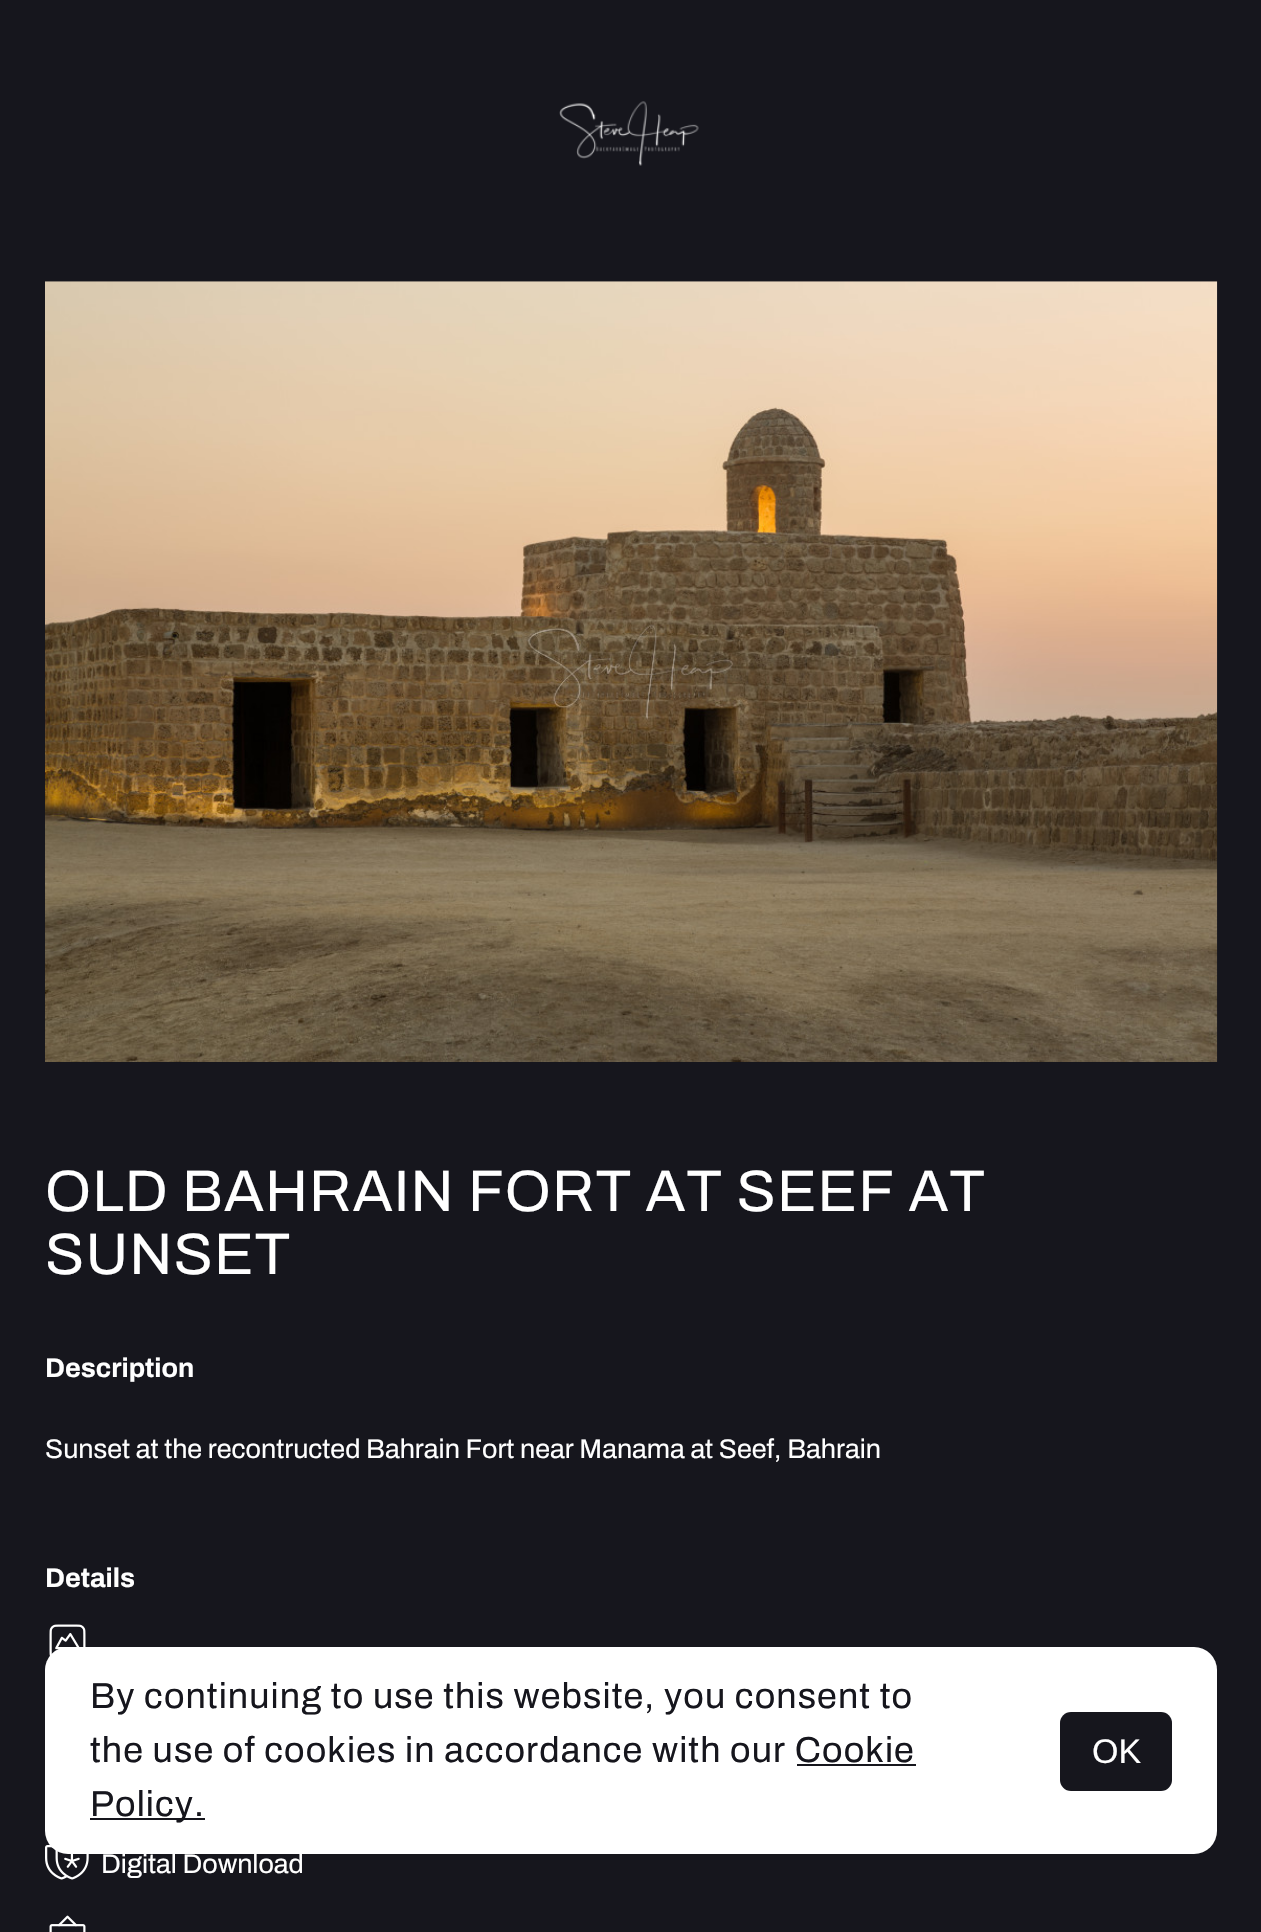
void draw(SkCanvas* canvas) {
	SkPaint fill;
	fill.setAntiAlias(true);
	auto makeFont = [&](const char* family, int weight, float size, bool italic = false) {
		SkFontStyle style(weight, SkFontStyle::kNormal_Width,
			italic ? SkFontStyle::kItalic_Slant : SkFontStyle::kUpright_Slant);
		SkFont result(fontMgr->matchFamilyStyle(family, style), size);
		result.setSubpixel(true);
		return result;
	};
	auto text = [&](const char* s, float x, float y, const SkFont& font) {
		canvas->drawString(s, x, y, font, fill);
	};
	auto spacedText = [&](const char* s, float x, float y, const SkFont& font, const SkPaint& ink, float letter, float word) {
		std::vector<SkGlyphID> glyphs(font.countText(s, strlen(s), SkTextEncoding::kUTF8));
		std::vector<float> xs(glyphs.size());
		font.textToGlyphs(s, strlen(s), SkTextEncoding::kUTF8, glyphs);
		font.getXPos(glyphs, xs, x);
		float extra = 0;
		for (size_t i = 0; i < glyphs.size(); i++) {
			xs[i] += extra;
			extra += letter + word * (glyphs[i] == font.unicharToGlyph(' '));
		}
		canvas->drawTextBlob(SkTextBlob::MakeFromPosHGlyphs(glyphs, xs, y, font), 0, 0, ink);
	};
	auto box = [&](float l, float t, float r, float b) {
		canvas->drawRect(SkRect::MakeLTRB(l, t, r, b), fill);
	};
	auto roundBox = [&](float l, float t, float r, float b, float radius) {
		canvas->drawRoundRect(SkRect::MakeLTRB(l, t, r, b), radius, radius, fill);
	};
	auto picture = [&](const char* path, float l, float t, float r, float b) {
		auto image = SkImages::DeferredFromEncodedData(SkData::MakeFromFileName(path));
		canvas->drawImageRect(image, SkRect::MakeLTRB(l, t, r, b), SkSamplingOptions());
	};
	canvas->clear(0xFF16161D);
	picture("image0.png", 559, 101, 699, 166);
	picture("image1.png", 45, 281, 1218, 1062);
	picture("image2.png", 49, 1624, 86, 1656);
	picture("image3.png", 45, 1845, 89, 1880);
	picture("image4.png", 49, 1915, 86, 1932);
	fill.setColor(0xFFFFFFFF);
	roundBox(45, 1647, 1217, 1854, 23);
	fill.setColor(0xFF16161D);
	box(797, 1764, 916, 1766);
	box(90, 1818, 205, 1820);
	roundBox(1060, 1712, 1172, 1791, 11);
	auto font1 = makeFont("Archivo", 400, 58.5f);
	fill.setColor(0xFFFFFFFF);
	spacedText("OLD BAHRAIN FORT AT SEEF AT", 45, 1211, font1, fill, 1.1f, 0);
	spacedText("SUNSET", 45, 1274, font1, fill, 1.1f, 0);
	auto font2 = makeFont("Archivo", 700, 27);
	text("Description", 45, 1377, font2);
	auto font3 = makeFont("Archivo", 400, 27);
	text("Sunset at the recontructed Bahrain Fort near Manama at Seef, Bahrain", 45, 1458, font3);
	text("Details", 45, 1587, font2);
	text("Digital Download", 101, 1873, font3);
	auto font4 = makeFont("Archivo", 400, 36);
	fill.setColor(0xFF16161D);
	spacedText("By continuing to use this website, you consent to", 90, 1708, font4, fill, 1.1f, 0);
	spacedText("the use of cookies in accordance with our Cookie", 90, 1762, font4, fill, 1.1f, 0);
	spacedText("Policy.", 90, 1816, font4, fill, 1.1f, 0);
	auto font5 = makeFont("Liberation Sans", 400, 34);
	fill.setColor(0xFFFFFFFF);
	text("OK", 1092, 1763, font5);
}
